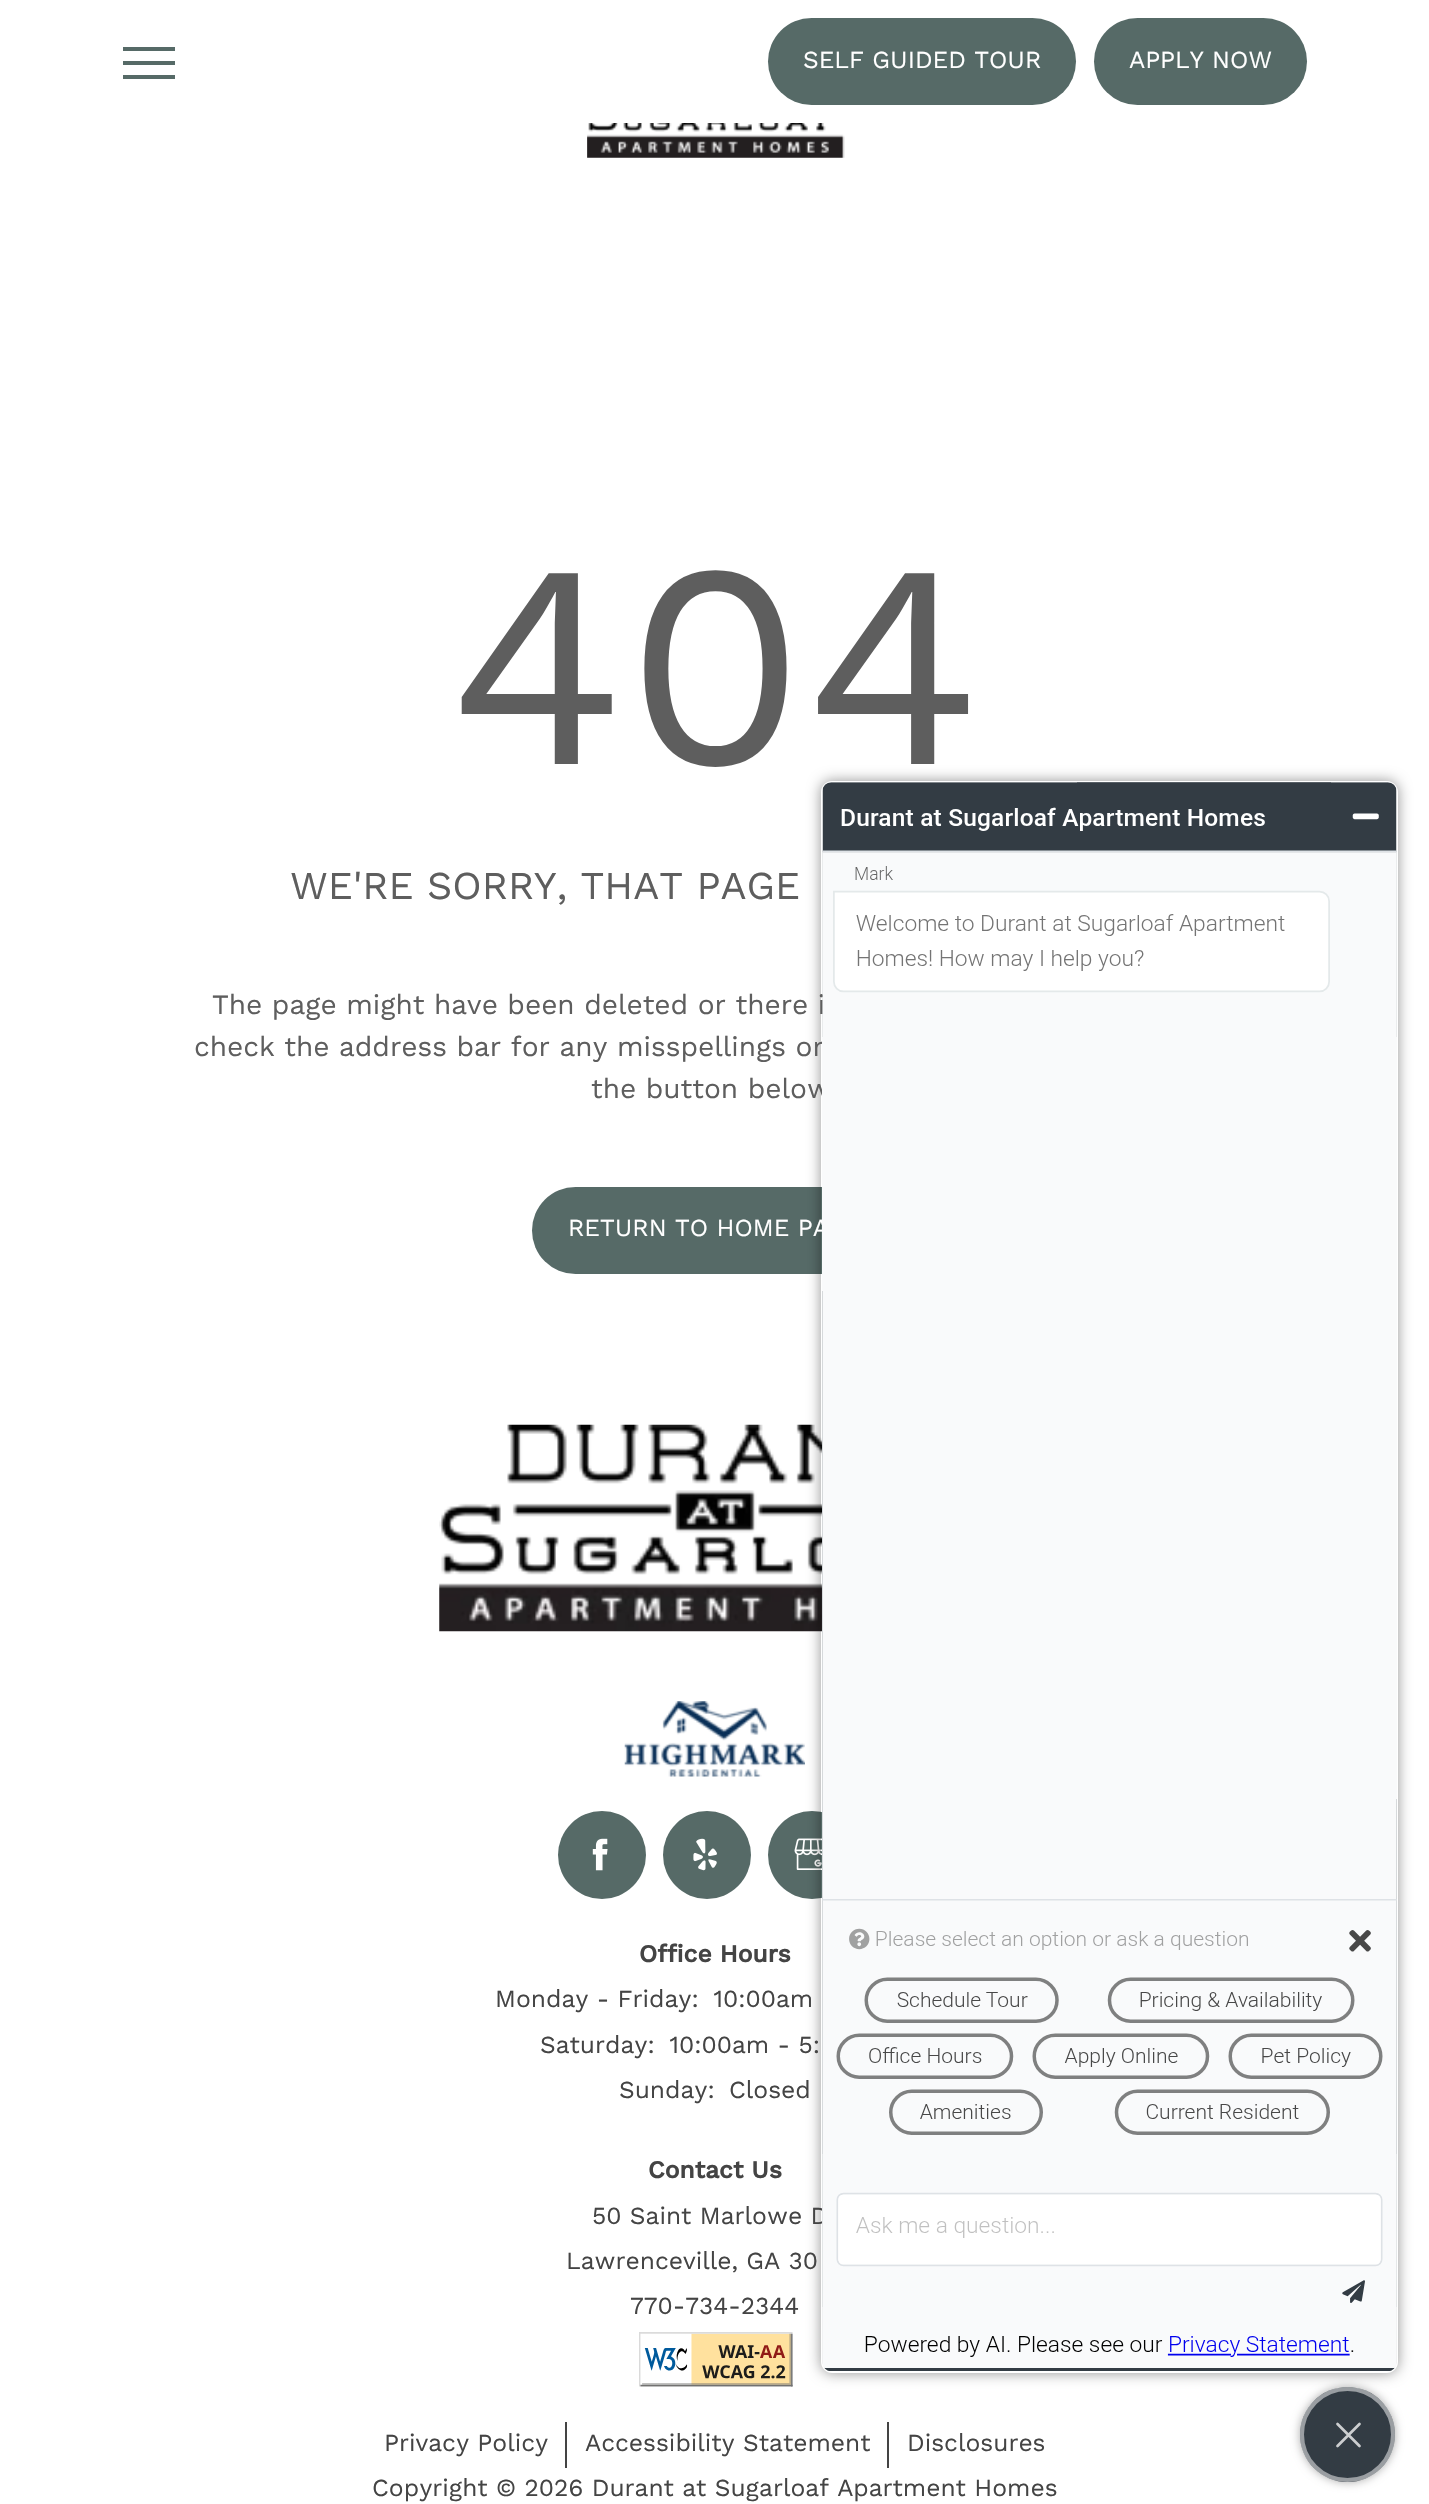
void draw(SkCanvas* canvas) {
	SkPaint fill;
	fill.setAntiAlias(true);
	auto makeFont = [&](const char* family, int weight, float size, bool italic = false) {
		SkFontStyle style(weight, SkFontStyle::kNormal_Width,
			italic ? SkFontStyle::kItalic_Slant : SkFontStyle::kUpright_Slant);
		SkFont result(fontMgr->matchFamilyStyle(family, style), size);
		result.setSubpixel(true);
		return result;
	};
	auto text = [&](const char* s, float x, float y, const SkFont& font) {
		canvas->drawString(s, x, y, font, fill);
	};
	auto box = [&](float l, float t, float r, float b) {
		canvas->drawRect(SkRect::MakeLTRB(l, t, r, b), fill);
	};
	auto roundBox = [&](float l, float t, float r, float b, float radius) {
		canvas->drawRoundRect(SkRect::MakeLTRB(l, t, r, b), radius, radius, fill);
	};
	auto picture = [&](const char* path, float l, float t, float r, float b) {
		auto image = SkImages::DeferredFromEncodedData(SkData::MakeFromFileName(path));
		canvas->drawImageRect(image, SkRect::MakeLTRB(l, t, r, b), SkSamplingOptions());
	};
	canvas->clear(0xFFFFFFFF);
	fill.setColor(0xFF566A67);
	box(123, 47, 175, 51);
	box(123, 61, 175, 65);
	box(123, 75, 175, 79);
	roundBox(768, 18, 1076, 105, 43.5f);
	roundBox(1094, 18, 1307, 105, 43.5f);
	picture("image0.png", 587, 123, 845, 158);
	roundBox(532, 1187, 898, 1274, 43.5f);
	picture("image1.png", 439, 1424, 822, 1632);
	picture("image2.png", 624, 1701, 805, 1777);
	canvas->drawCircle(602, 1855, 44, fill);
	picture("image3.png", 592, 1838, 608, 1871);
	canvas->drawCircle(707, 1855, 44, fill);
	picture("image4.png", 693, 1838, 717, 1871);
	canvas->drawCircle(812, 1855, 44, fill);
	picture("image5.png", 794, 1838, 822, 1870);
	picture("image6.png", 639, 2332, 793, 2387);
	fill.setColor(0xFF444444);
	box(565, 2422, 567, 2468);
	box(887, 2422, 889, 2468);
	fill.setColor(0x54000000);
	fill.setMaskFilter(SkMaskFilter::MakeBlur(kNormal_SkBlurStyle, 5));
	canvas->drawRoundRect(SkRect::MakeLTRB(1300, 2387, 1395, 2482), 47.5f, 47.5f, fill);
	fill.setMaskFilter(nullptr);
	fill.setColor(0xFF333C44);
	canvas->drawCircle(1347.5f, 2434.5f, 47.5f, fill);
	fill.setStyle(SkPaint::kStroke_Style);
	fill.setStrokeWidth(4);
	fill.setColor(0x80FFFFFF);
	canvas->drawCircle(1347.5f, 2434.5f, 45.5f, fill);
	canvas->save();
	canvas->clipPath(SkPathBuilder(SkPathFillType::kEvenOdd).moveTo(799, 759).lineTo(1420, 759).lineTo(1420, 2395).lineTo(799, 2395).close().moveTo(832, 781).lineTo(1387, 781).cubicTo(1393, 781, 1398, 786, 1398, 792).lineTo(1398, 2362).cubicTo(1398, 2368, 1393, 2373, 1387, 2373).lineTo(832, 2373).cubicTo(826, 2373, 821, 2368, 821, 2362).lineTo(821, 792).cubicTo(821, 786, 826, 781, 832, 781).close().detach(), true);
	fill.setStyle(SkPaint::kFill_Style);
	fill.setColor(0x6B000000);
	fill.setMaskFilter(SkMaskFilter::MakeBlur(kNormal_SkBlurStyle, 7));
	canvas->drawRoundRect(SkRect::MakeLTRB(821, 781, 1398, 2373), 11, 11, fill);
	fill.setMaskFilter(nullptr);
	canvas->restore();
	fill.setStyle(SkPaint::kStroke_Style);
	fill.setStrokeWidth(2.7f);
	fill.setStrokeCap(SkPaint::kRound_Cap);
	fill.setStrokeJoin(SkPaint::kRound_Join);
	fill.setColor(0xFFCCCED0);
	canvas->drawPath(SkPathBuilder().moveTo(1337.5f, 2446).lineTo(1359.5f, 2424).moveTo(1337.5f, 2424).lineTo(1359.5f, 2446).detach(), fill);
	auto font1 = makeFont("Work Sans", 400, 24.5f);
	fill.setStyle(SkPaint::kFill_Style);
	fill.setColor(0xFFFFFFFF);
	text("SELF GUIDED TOUR", 803, 68, font1);
	text("APPLY NOW", 1129, 68, font1);
	auto font2 = makeFont("Work Sans", 400, 289);
	fill.setColor(0xFF5E5E5E);
	text("404", 449, 764, font2);
	auto font3 = makeFont("Work Sans", 400, 39.4f);
	text("WE'RE SORRY, THAT PAGE", 290, 899, font3);
	auto font4 = makeFont("Work Sans", 400, 27.9f);
	text("The page might have been deleted or there i", 212, 1014, font4);
	text("check the address bar for any misspellings or", 194, 1056, font4);
	text("the button below", 591, 1098, font4);
	fill.setColor(0xFFFFFFFF);
	text("RETURN TO HOME PA", 568, 1236, font1);
	auto font5 = makeFont("Work Sans", 700, 24.5f);
	fill.setColor(0xFF444444);
	text("Office Hours", 639, 1962, font5);
	text("Monday - Friday:", 495, 2007, font1);
	text("10:00am", 713, 2007, font1);
	text("Saturday:", 540, 2053, font1);
	text("10:00am - 5:", 669, 2053, font1);
	text("Sunday:", 619, 2098, font1);
	text("Closed", 729, 2098, font1);
	text("Contact Us", 648, 2178, font5);
	text("50 Saint Marlowe D", 592, 2224, font1);
	text("Lawrenceville, GA 30", 566, 2269, font1);
	text("770-734-2344", 630, 2314, font1);
	text("Privacy Policy", 384, 2451, font1);
	text("Accessibility Statement", 585, 2451, font1);
	text("Disclosures", 907, 2451, font1);
	text("Copyright © 2026 Durant at Sugarloaf Apartment Homes", 372, 2496, font1);
	picture("image7.png", 822, 782, 1397, 2371);
}
